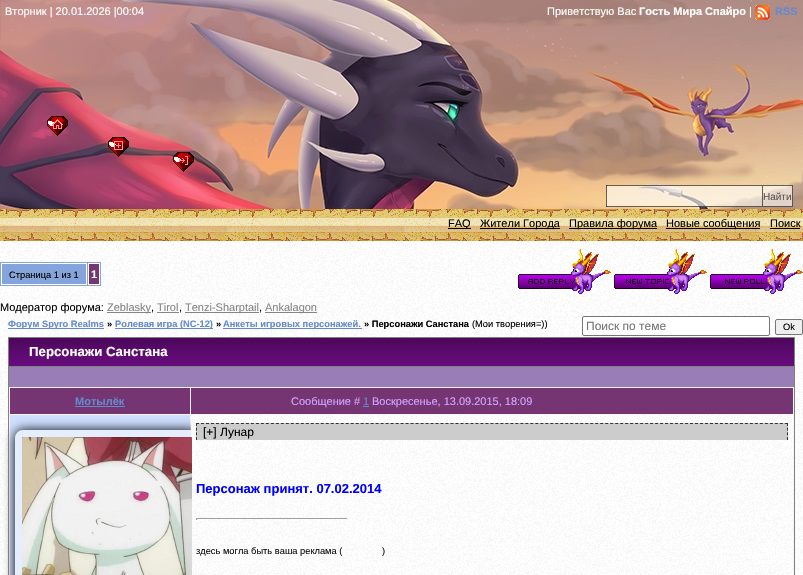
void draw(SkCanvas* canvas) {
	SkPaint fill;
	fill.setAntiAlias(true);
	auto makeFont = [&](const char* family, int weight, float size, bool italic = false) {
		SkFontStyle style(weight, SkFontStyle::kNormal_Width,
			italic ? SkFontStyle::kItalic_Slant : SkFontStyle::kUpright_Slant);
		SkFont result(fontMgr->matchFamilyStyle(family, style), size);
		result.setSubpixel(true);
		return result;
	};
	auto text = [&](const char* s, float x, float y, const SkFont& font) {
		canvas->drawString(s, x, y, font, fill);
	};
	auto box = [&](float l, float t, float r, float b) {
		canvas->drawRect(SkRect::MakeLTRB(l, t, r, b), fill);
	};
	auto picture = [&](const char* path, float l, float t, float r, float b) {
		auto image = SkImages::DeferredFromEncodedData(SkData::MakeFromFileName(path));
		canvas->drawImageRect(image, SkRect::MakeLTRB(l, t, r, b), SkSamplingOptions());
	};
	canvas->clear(0xFFFFFFFF);
	picture("image0.png", 0, 241, 803, 575);
	picture("image1.png", 0, 0, 803, 209);
	picture("image2.png", 755, 5, 770, 20);
	picture("image3.png", 47, 116, 68, 136);
	picture("image4.png", 108, 137, 129, 157);
	picture("image5.png", 173, 152, 194, 172);
	fill.setColor(0x99FFFFFF);
	box(606, 185, 762, 207);
	fill.setColor(0x99000000);
	box(606, 185, 762, 186);
	box(606, 206, 762, 207);
	box(606, 185, 607, 207);
	fill.setColor(0x99FFFFFF);
	box(762, 185, 793, 207);
	fill.setStyle(SkPaint::kStroke_Style);
	fill.setStrokeWidth(1);
	fill.setColor(0x99000000);
	canvas->drawRect(SkRect::MakeLTRB(762.5f, 185.5f, 792.5f, 206.5f), fill);
	picture("image6.png", 0, 209, 803, 241);
	fill.setStyle(SkPaint::kFill_Style);
	fill.setColor(0xFF000000);
	box(448, 228, 471, 229);
	box(480, 228, 560, 229);
	box(569, 228, 657, 229);
	box(666, 228, 760, 229);
	box(770, 228, 800, 229);
	fill.setColor(0xFF85A4DB);
	box(0, 262, 101, 286);
	fill.setStyle(SkPaint::kStroke_Style);
	fill.setColor(0xFFFFFFFF);
	canvas->drawRect(SkRect::MakeLTRB(1.5f, 263.5f, 86.5f, 284.5f), fill);
	fill.setStyle(SkPaint::kFill_Style);
	fill.setColor(0xFF743572);
	canvas->drawRect(SkRect::MakeLTRB(88.5f, 263.5f, 99.5f, 284.5f), fill);
	fill.setStyle(SkPaint::kStroke_Style);
	fill.setColor(0xFFFFFFFF);
	canvas->drawRect(SkRect::MakeLTRB(88.5f, 263.5f, 99.5f, 284.5f), fill);
	picture("image7.png", 518, 249, 611, 294);
	picture("image8.png", 614, 249, 707, 294);
	picture("image9.png", 710, 249, 803, 294);
	fill.setStyle(SkPaint::kFill_Style);
	fill.setColor(0xFF858585);
	box(107, 312, 151, 313);
	box(157, 312, 179, 313);
	box(185, 312, 259, 313);
	box(265, 312, 317, 313);
	fill.setColor(0xFF648ACD);
	box(8, 328, 104, 329);
	box(115, 328, 213, 329);
	box(223, 328, 362, 329);
	fill.setColor(0xFFFFFFFF);
	canvas->drawRoundRect(SkRect::MakeLTRB(582.5f, 316.5f, 769.5f, 335.5f), 1.5f, 1.5f, fill);
	fill.setStyle(SkPaint::kStroke_Style);
	fill.setColor(0xFF767676);
	canvas->drawRoundRect(SkRect::MakeLTRB(582.5f, 316.5f, 769.5f, 335.5f), 1.5f, 1.5f, fill);
	fill.setStyle(SkPaint::kFill_Style);
	fill.setColor(0xFFEFEFEF);
	canvas->drawRoundRect(SkRect::MakeLTRB(775.5f, 319.5f, 802.5f, 334.5f), 1.5f, 1.5f, fill);
	fill.setStyle(SkPaint::kStroke_Style);
	fill.setColor(0xFF767676);
	canvas->drawRoundRect(SkRect::MakeLTRB(775.5f, 319.5f, 802.5f, 334.5f), 1.5f, 1.5f, fill);
	fill.setStyle(SkPaint::kFill_Style);
	fill.setColor(0xFF808080);
	box(8, 337, 795, 338);
	box(794, 337, 795, 575);
	fill.setColor(0xFFFBF4FD);
	box(9, 387, 794, 575);
	fill.setColor(0xFF743572);
	box(10, 388, 190, 414);
	box(191, 388, 793, 414);
	fill.setColor(0xFFCFE0FF);
	box(10, 415, 190, 575);
	fill.setColor(0xFF000000);
	fill.setMaskFilter(SkMaskFilter::MakeBlur(kNormal_SkBlurStyle, 6));
	canvas->drawRoundRect(SkRect::MakeLTRB(15, 430, 199, 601), 8, 8, fill);
	fill.setMaskFilter(nullptr);
	fill.setColor(0xFF808080);
	box(8, 337, 9, 575);
	picture("image10.png", 9, 338, 794, 366);
	box(8, 366, 795, 367);
	fill.setColor(0xFF997DB7);
	box(9, 367, 794, 387);
	fill.setColor(0xFF648ACD);
	box(75, 406, 125, 407);
	box(363, 406, 369, 407);
	fill.setStyle(SkPaint::kStroke_Style);
	fill.setStrokeWidth(7);
	fill.setColor(0xFFE5EEFF);
	canvas->drawRoundRect(SkRect::MakeLTRB(18.5f, 433.5f, 195.5f, 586.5f), 4.5f, 4.5f, fill);
	fill.setStyle(SkPaint::kFill_Style);
	fill.setColor(0xFFFFFFFF);
	box(191, 415, 793, 575);
	picture("image12.png", 191, 415, 793, 575);
	picture("image11.png", 22, 437, 192, 575);
	fill.setColor(0xFFCCCCCC);
	box(196, 423, 788, 440);
	fill.setStyle(SkPaint::kStroke_Style);
	fill.setStrokeWidth(1);
	fill.setColor(0xFF333333);
	fill.setPathEffect(SkDashPathEffect::Make({{3, 1.99f}}, 0));
	canvas->drawPath(SkPathBuilder().moveTo(196, 423.5f).lineTo(788, 423.5f).detach(), fill);
	fill.setPathEffect(nullptr);
	fill.setPathEffect(SkDashPathEffect::Make({{3, 1.67f}}, 0));
	canvas->drawPath(SkPathBuilder().moveTo(787.5f, 423).lineTo(787.5f, 440).detach(), fill);
	fill.setPathEffect(nullptr);
	fill.setPathEffect(SkDashPathEffect::Make({{3, 1.67f}}, 0));
	canvas->drawPath(SkPathBuilder().moveTo(196.5f, 423).lineTo(196.5f, 440).detach(), fill);
	fill.setPathEffect(nullptr);
	fill.setStyle(SkPaint::kFill_Style);
	fill.setColor(0xFF9F9F9F);
	box(196, 518, 348, 519);
	fill.setColor(0xFFEEEEEE);
	box(347, 518, 348, 520);
	fill.setColor(0xFF9F9F9F);
	box(196, 518, 197, 520);
	auto font1 = makeFont("Liberation Sans", 400, 11);
	fill.setColor(0xFFFFFFFF);
	text("Вторник | 20.01.2026 |00:04", 5, 15, font1);
	text("Приветствую Вас", 547, 15, font1);
	auto font2 = makeFont("Liberation Sans", 700, 11);
	text("Гость Мира Спайро", 639, 15, font2);
	text("|", 749, 15, font1);
	fill.setColor(0xFF648ACD);
	text("RSS", 775, 15, font2);
	auto font3 = makeFont("Liberation Sans", 400, 10);
	fill.setColor(0xFF5B5651);
	text("Найти", 763, 200, font3);
	fill.setColor(0xFF000000);
	text("FAQ", 448, 227, font1);
	text("Жители Города", 480, 227, font1);
	text("Правила форума", 569, 227, font1);
	text("Новые сообщения", 666, 227, font1);
	text("Поиск", 770, 227, font1);
	auto font4 = makeFont("Liberation Sans", 400, 9.3f);
	text("Страница 1 из 1", 9, 278, font4);
	fill.setColor(0xFFFFFFFF);
	text("1", 91, 278, font2);
	fill.setColor(0xFF000000);
	text("Модератор форума:", 0, 311, font1);
	fill.setColor(0xFF858585);
	text("Zeblasky", 107, 311, font1);
	fill.setColor(0xFF000000);
	text(",", 151, 311, font1);
	fill.setColor(0xFF858585);
	text("Tirol", 157, 311, font1);
	fill.setColor(0xFF000000);
	text(",", 179, 311, font1);
	fill.setColor(0xFF858585);
	text("Tenzi-Sharptail", 185, 311, font1);
	fill.setColor(0xFF000000);
	text(",", 259, 311, font1);
	fill.setColor(0xFF858585);
	text("Ankalagon", 265, 311, font1);
	auto font5 = makeFont("Liberation Sans", 700, 9.3f);
	fill.setColor(0xFF648ACD);
	text("Форум Spyro Realms", 8, 327, font5);
	fill.setColor(0xFF000000);
	text("»", 107, 327, font5);
	fill.setColor(0xFF648ACD);
	text("Ролевая игра (NC-12)", 115, 327, font5);
	fill.setColor(0xFF000000);
	text("»", 216, 327, font5);
	fill.setColor(0xFF648ACD);
	text("Анкеты игровых персонажей.", 223, 327, font5);
	fill.setColor(0xFF000000);
	text("» Персонажи Санстана", 364, 327, font5);
	text("(Мои творения=))", 472, 327, font4);
	auto font6 = makeFont("Liberation Sans", 400, 12);
	fill.setColor(0xFF757575);
	text("Поиск по теме", 586, 330, font6);
	fill.setColor(0xFF000000);
	text("Ok", 783, 330, font4);
	auto font7 = makeFont("Liberation Sans", 700, 13.25f);
	fill.setColor(0xFFFFFFFF);
	text("Персонажи Санстана", 29, 356, font7);
	fill.setColor(0xFF648ACD);
	text("Мотылёк", 75, 405, font2);
	fill.setColor(0xFFD2A5FF);
	text("Сообщение #", 291, 405, font1);
	fill.setColor(0xFF648ACD);
	text("1", 363, 405, font1);
	fill.setColor(0xFFD2A5FF);
	text("Воскресенье, 13.09.2015, 18:09", 372, 405, font1);
	fill.setColor(0xFF000000);
	text("[+] Лунар", 203, 436, font6);
	auto font8 = makeFont("Liberation Sans", 700, 13);
	fill.setColor(0xFF0000FF);
	text("Персонаж принят. 07.02.2014", 196, 493, font8);
	fill.setColor(0xFF111111);
	text("здесь могла быть ваша реклама (", 196, 554, font4);
	text(")", 382, 554, font4);
}
